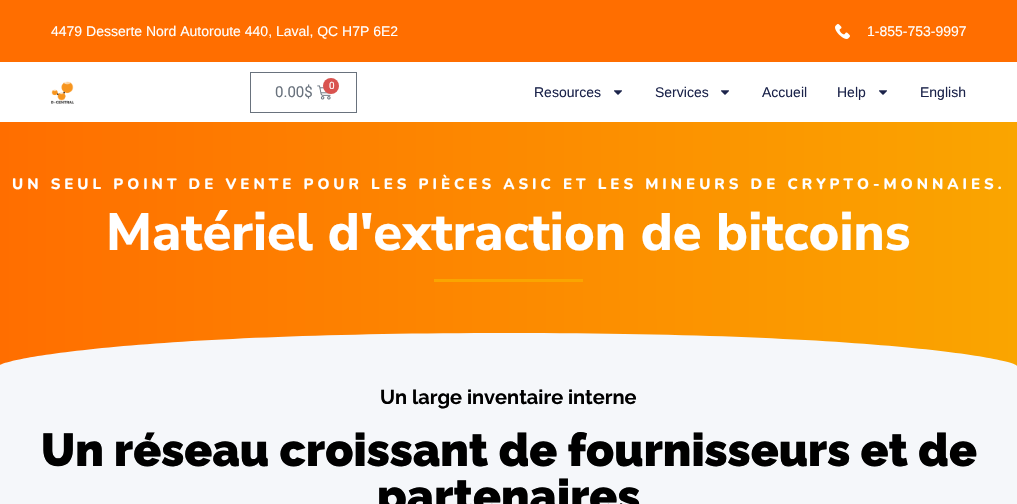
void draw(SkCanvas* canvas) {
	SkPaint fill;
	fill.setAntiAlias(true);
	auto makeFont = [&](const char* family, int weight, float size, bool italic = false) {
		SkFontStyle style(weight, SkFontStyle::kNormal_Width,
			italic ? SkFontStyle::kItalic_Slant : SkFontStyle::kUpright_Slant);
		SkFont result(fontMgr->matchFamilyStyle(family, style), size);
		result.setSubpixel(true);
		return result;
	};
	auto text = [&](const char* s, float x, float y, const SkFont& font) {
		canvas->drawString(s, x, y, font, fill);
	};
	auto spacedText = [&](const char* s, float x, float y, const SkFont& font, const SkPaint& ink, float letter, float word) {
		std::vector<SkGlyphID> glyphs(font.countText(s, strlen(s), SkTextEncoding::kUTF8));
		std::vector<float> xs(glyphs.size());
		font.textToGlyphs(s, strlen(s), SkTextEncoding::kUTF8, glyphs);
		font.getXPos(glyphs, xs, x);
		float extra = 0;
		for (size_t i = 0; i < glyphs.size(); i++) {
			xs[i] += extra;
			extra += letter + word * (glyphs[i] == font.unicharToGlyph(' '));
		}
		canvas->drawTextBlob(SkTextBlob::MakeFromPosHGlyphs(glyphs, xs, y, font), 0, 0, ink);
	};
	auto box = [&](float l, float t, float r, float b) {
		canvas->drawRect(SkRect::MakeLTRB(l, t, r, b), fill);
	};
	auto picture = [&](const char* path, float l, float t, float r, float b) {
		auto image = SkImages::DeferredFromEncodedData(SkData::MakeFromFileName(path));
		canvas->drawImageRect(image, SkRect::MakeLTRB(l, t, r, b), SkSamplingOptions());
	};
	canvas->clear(0xFFFFFFFF);
	fill.setColor(0xFFFF6E00);
	box(0, 0, 1017, 62);
	picture("image0.png", 835, 24, 850, 39);
	picture("image1.png", 51, 81, 74, 104);
	fill.setStyle(SkPaint::kStroke_Style);
	fill.setStrokeWidth(1);
	fill.setColor(0xFF69727D);
	canvas->drawRect(SkRect::MakeLTRB(250.5f, 72.5f, 356.5f, 112.5f), fill);
	picture("image2.png", 317, 85, 331, 100);
	fill.setStyle(SkPaint::kFill_Style);
	fill.setColor(0xFFD9534F);
	canvas->drawCircle(331, 86, 8, fill);
	picture("image3.png", 614, 90, 622, 95);
	picture("image3.png", 721, 90, 729, 95);
	picture("image3.png", 879, 90, 887, 95);
	{
		const SkColor colors[] = {0xFFFAA500, 0xFFFF6E00};
		const float stops[] = {0, 1};
		const SkPoint ends[] = {{1017, 244}, {0, 245}};
		fill.setShader(SkGradientShader::MakeLinear(ends, colors, stops, 2, SkTileMode::kClamp));
		fill.setAlpha(255);
	}
	box(0, 122, 1017, 366);
	fill.setShader(nullptr);
	fill.setColor(0xFFFAA500);
	box(434, 279, 583, 282);
	fill.setColor(0xFFF5F7FA);
	canvas->drawPath(SkPathBuilder().moveTo(-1, 366).lineTo(-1, 368).lineTo(1017, 368).lineTo(1017, 366).cubicTo(1016, 360, 888, 333, 508, 333).cubicTo(128, 333, -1, 360, -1, 366).close().detach(), fill);
	box(0, 368, 1017, 504);
	auto font1 = makeFont("Liberation Sans", 400, 14);
	fill.setColor(0xFFFFFFFF);
	text("4479 Desserte Nord Autoroute 440, Laval, QC H7P 6E2", 51, 36, font1);
	text("1-855-753-9997", 867, 36, font1);
	auto font2 = makeFont("Roboto", 400, 15);
	fill.setColor(0xFF69727D);
	text("0.00$", 275, 97, font2);
	auto font3 = makeFont("Roboto", 400, 10);
	fill.setColor(0xFFFFFFFF);
	text("0", 329, 89, font3);
	fill.setColor(0xFF1C244B);
	text("Resources", 534, 97, font1);
	text("Services", 655, 97, font1);
	text("Accueil", 762, 97, font1);
	text("Help", 837, 97, font1);
	text("English", 920, 97, font1);
	auto font4 = makeFont("Nunito", 800, 15);
	fill.setColor(0xFFFFFFFF);
	spacedText("UN SEUL POINT DE VENTE POUR LES PIÈCES ASIC ET LES MINEURS DE CRYPTO-MONNAIES.", 12, 189, font4, fill, 4, 0);
	auto font5 = makeFont("Nunito Sans", 800, 52.5f);
	text("Matériel d'extraction de bitcoins", 106, 250, font5);
	auto font6 = makeFont("Raleway", 700, 20);
	fill.setColor(0xFF000000);
	text("Un large inventaire interne", 380, 404, font6);
	auto font7 = makeFont("Raleway", 900, 46);
	text("Un réseau croissant de fournisseurs et de", 41, 466, font7);
	text("partenaires", 377, 512, font7);
}
